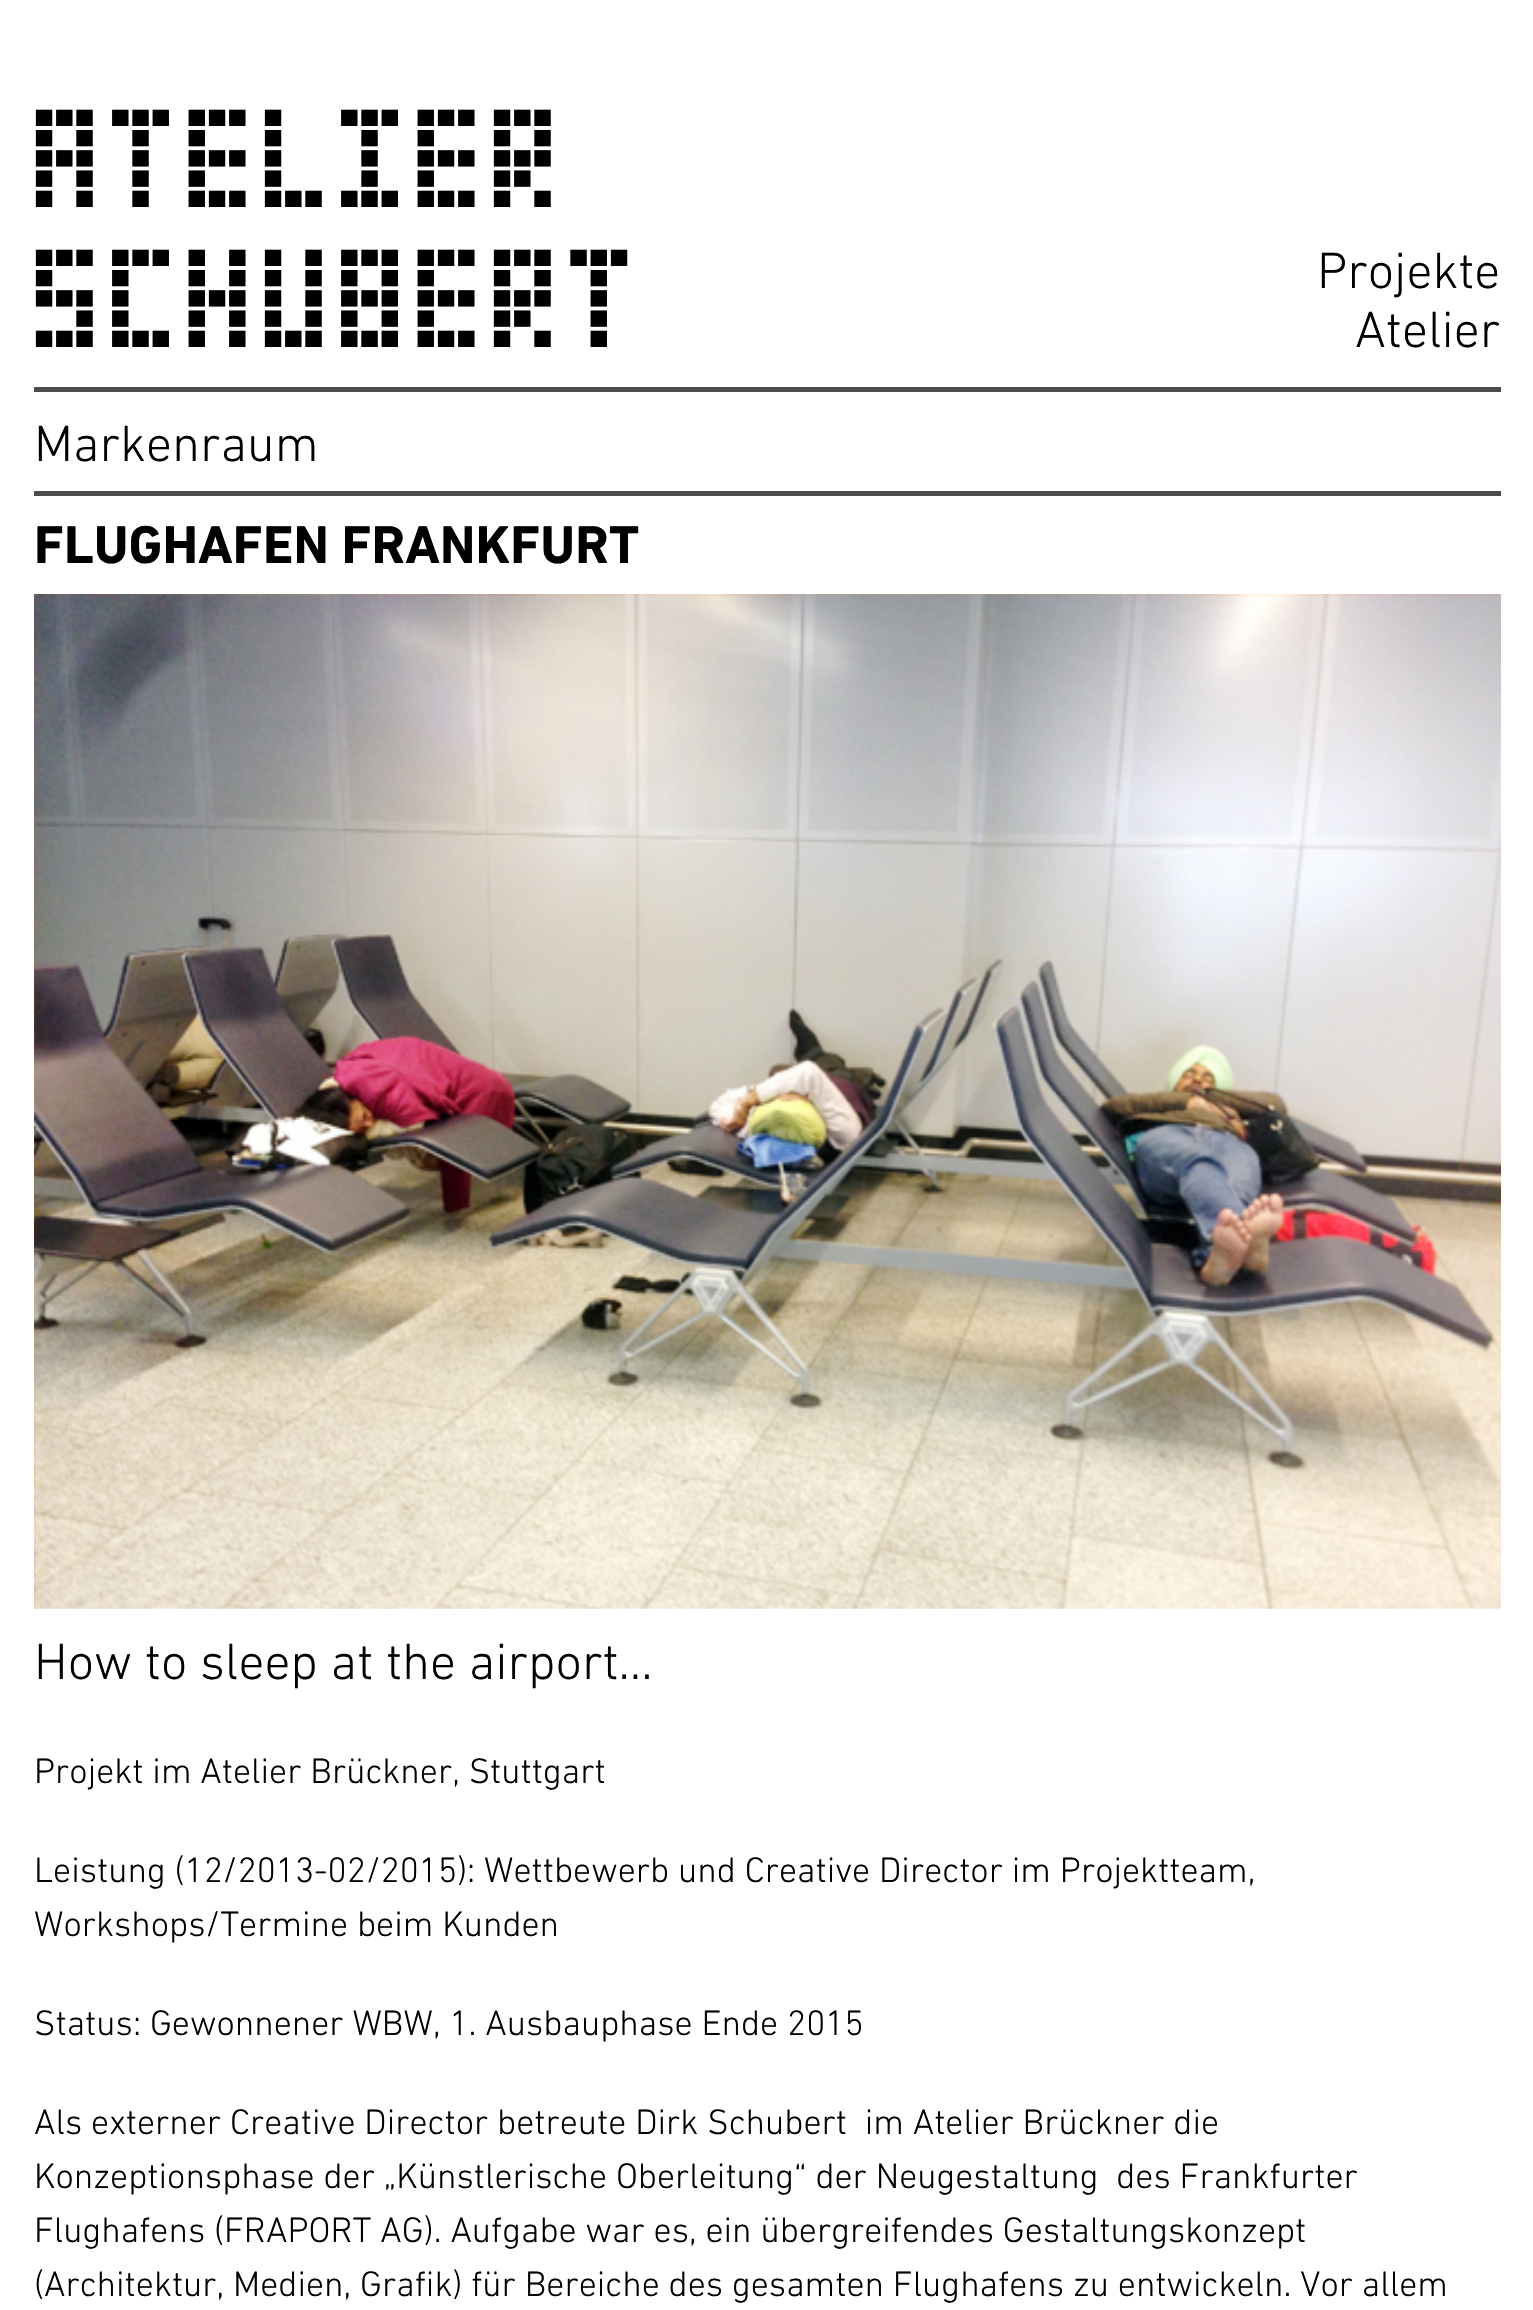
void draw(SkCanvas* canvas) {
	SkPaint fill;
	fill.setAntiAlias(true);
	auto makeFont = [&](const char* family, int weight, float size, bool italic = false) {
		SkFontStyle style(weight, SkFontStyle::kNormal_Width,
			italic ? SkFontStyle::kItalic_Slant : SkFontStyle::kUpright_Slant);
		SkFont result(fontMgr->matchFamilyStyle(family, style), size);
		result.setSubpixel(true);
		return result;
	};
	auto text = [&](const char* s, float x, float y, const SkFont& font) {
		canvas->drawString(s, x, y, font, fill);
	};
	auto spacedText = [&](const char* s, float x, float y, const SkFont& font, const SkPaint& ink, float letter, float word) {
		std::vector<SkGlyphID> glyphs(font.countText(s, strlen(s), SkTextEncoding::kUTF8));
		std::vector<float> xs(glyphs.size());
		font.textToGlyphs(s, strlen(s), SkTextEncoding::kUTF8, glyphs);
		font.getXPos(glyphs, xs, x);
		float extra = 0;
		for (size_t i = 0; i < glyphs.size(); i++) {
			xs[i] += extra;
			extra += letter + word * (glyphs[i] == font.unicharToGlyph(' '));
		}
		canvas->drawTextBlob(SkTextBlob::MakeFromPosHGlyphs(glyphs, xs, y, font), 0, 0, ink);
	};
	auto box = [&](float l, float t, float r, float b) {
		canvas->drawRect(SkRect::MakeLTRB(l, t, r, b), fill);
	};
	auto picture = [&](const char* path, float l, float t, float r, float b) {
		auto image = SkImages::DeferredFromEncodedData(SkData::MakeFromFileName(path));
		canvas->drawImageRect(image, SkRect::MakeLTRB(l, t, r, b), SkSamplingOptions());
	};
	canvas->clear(0xFFFFFFFF);
	fill.setColor(0xFF4D4D4D);
	box(34, 387, 1501, 392);
	box(34, 491, 1501, 496);
	picture("image0.png", 34, 594, 1501, 1609);
	auto font1 = makeFont("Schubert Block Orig", 400, 162);
	fill.setColor(0xFF000000);
	spacedText("ATELIER", 34, 209, font1, fill, 15.75f, 0);
	spacedText("SCHUBERT", 34, 349, font1, fill, 15.75f, 0);
	auto font2 = makeFont("DIN Next", 300, 51.75f);
	text("Projekte", 1317, 288, font2);
	text("Atelier", 1355, 347, font2);
	text("Markenraum", 34, 461, font2);
	auto font3 = makeFont("DIN Next", 700, 54);
	text("FLUGHAFEN FRANKFURT", 34, 563, font3);
	text("How to sleep at the airport...", 34, 1679, font2);
	auto font4 = makeFont("DIN Next", 300, 36);
	text("Projekt im Atelier Brückner, Stuttgart", 34, 1783, font4);
	text("Leistung (12/2013-02/2015): Wettbewerb und Creative Director im Projektteam,", 34, 1882, font4);
	text("Workshops/Termine beim Kunden", 34, 1936, font4);
	text("Status: Gewonnener WBW, 1. Ausbauphase Ende 2015", 34, 2035, font4);
	text("Als externer Creative Director betreute Dirk Schubert  im Atelier Brückner die", 34, 2134, font4);
	text("Konzeptionsphase der „Künstlerische Oberleitung“ der Neugestaltung  des Frankfurter", 34, 2188, font4);
	text("Flughafens (FRAPORT AG). Aufgabe war es, ein übergreifendes Gestaltungskonzept", 34, 2242, font4);
	text("(Architektur, Medien, Grafik) für Bereiche des gesamten Flughafens zu entwickeln. Vor allem", 34, 2296, font4);
}
